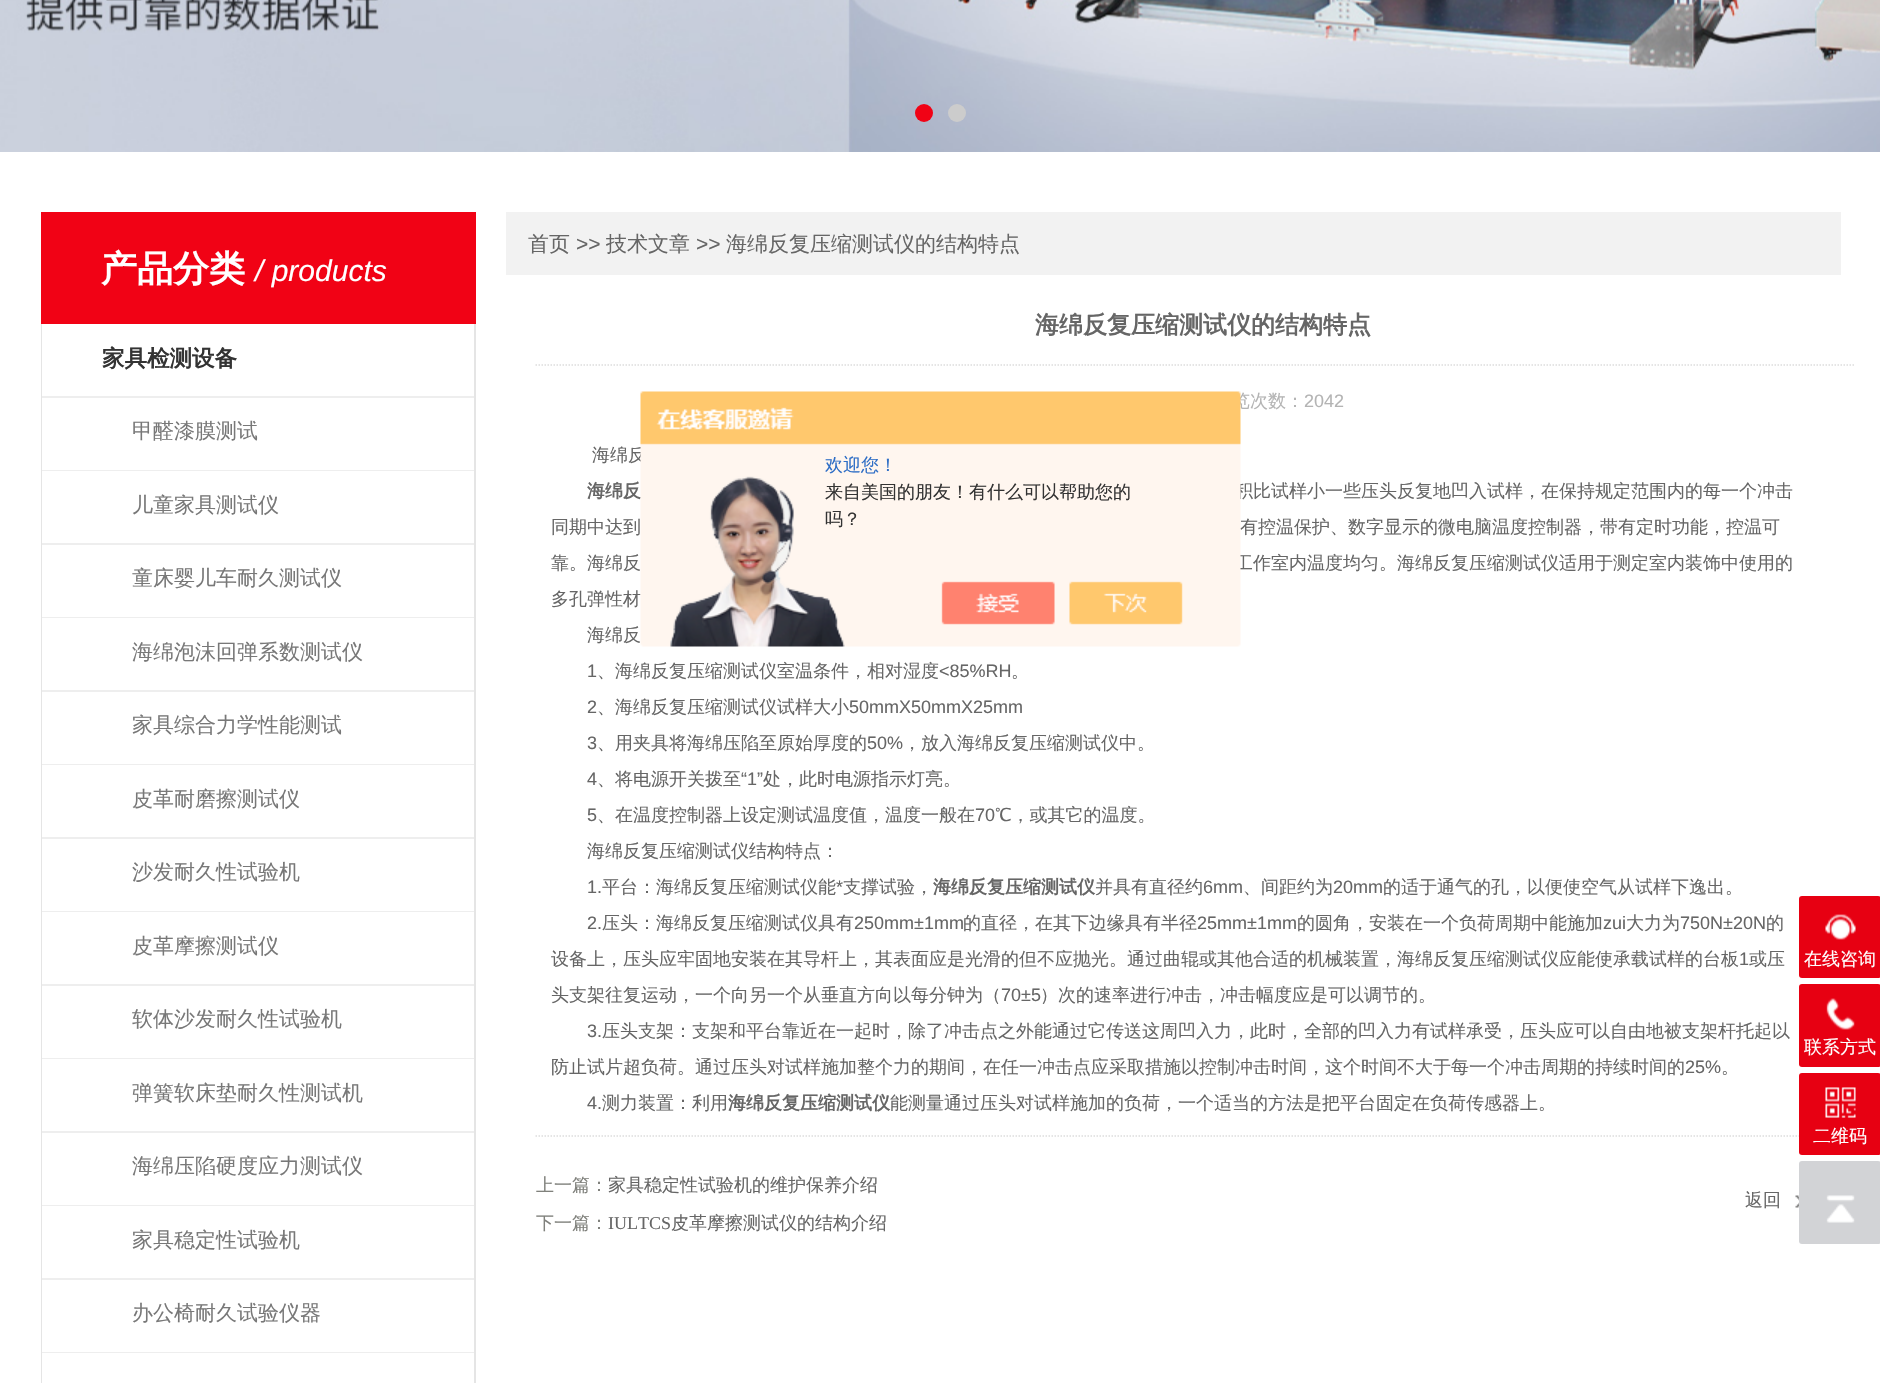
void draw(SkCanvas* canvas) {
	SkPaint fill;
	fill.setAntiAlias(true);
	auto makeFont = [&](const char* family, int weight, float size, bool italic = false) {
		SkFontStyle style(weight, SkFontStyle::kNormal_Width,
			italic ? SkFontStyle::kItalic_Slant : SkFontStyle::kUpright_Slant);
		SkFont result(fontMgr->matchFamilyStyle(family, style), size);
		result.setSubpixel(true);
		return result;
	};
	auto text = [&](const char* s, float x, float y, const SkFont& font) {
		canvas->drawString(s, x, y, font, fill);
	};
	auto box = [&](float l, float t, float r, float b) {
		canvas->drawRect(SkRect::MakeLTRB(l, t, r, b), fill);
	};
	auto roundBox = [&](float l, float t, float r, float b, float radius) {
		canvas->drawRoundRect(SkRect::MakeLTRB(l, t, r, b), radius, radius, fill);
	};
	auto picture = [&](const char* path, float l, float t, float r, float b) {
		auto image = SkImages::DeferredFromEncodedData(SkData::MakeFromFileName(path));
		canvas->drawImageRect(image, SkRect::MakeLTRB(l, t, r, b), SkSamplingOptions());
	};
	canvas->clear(0xFFFFFFFF);
	picture("image0.png", 0, 0, 1880, 152);
	fill.setColor(0xFFF10215);
	canvas->drawCircle(924, 113, 9, fill);
	fill.setColor(0xFFCCCCCC);
	canvas->drawCircle(957, 113, 9, fill);
	fill.setColor(0xFFF10215);
	box(41, 212, 476, 324);
	fill.setColor(0xFFE5E5E5);
	box(474, 324, 476, 1383);
	box(41, 324, 42, 1383);
	fill.setColor(0xFFEEEEEE);
	box(42, 396, 474, 398);
	box(42, 470, 474, 471);
	box(42, 543, 474, 545);
	box(42, 617, 474, 618);
	box(42, 690, 474, 692);
	box(42, 764, 474, 765);
	box(42, 837, 474, 839);
	box(42, 911, 474, 912);
	box(42, 984, 474, 986);
	box(42, 1058, 474, 1059);
	box(42, 1131, 474, 1133);
	box(42, 1205, 474, 1206);
	box(42, 1278, 474, 1280);
	box(42, 1352, 474, 1353);
	fill.setColor(0xFFF2F2F2);
	box(506, 212, 1841, 275);
	fill.setStyle(SkPaint::kStroke_Style);
	fill.setStrokeWidth(1.5f);
	fill.setColor(0xFFDDDDDD);
	fill.setPathEffect(SkDashPathEffect::Make({{1.5f, 1.5f}}, 0));
	canvas->drawPath(SkPathBuilder().moveTo(535.5f, 365).lineTo(1855.5f, 365).detach(), fill);
	fill.setPathEffect(nullptr);
	fill.setPathEffect(SkDashPathEffect::Make({{1.5f, 1.5f}}, 0));
	canvas->drawPath(SkPathBuilder().moveTo(535.5f, 1136).lineTo(1810.5f, 1136).detach(), fill);
	fill.setPathEffect(nullptr);
	picture("image1.png", 1795, 1195, 1799, 1208);
	fill.setStyle(SkPaint::kFill_Style);
	fill.setColor(0xFFE70012);
	roundBox(1799, 896, 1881, 978, 3);
	picture("image3.png", 1825, 914, 1856, 940);
	roundBox(1799, 984, 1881, 1067, 3);
	picture("image4.png", 1826, 998, 1855, 1030);
	roundBox(1799, 1073, 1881, 1155, 3);
	picture("image5.png", 1825, 1087, 1856, 1118);
	fill.setColor(0xFFD2D3D6);
	roundBox(1799, 1161, 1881, 1244, 3);
	picture("image6.png", 1826, 1195, 1855, 1223);
	auto font1 = makeFont("WenQuanYi Zen Hei", 700, 36);
	fill.setColor(0xFFFFFFFF);
	text("产品分类", 101, 281, font1);
	auto font2 = makeFont("Liberation Sans", 400, 30, true);
	text("/ products", 255, 281, font2);
	auto font3 = makeFont("WenQuanYi Zen Hei", 700, 22.5f);
	fill.setColor(0xFF333333);
	text("家具检测设备", 102, 366, font3);
	auto font4 = makeFont("WenQuanYi Zen Hei", 500, 21);
	fill.setColor(0xFF787878);
	text("甲醛漆膜测试", 132, 438, font4);
	text("儿童家具测试仪", 132, 512, font4);
	text("童床婴儿车耐久测试仪", 132, 585, font4);
	text("海绵泡沫回弹系数测试仪", 132, 659, font4);
	text("家具综合力学性能测试", 132, 732, font4);
	text("皮革耐磨擦测试仪", 132, 806, font4);
	text("沙发耐久性试验机", 132, 879, font4);
	text("皮革摩擦测试仪", 132, 953, font4);
	text("软体沙发耐久性试验机", 132, 1026, font4);
	text("弹簧软床垫耐久性测试机", 132, 1100, font4);
	text("海绵压陷硬度应力测试仪", 132, 1173, font4);
	text("家具稳定性试验机", 132, 1247, font4);
	text("办公椅耐久试验仪器", 132, 1320, font4);
	fill.setColor(0xFF666666);
	text("首页", 528, 251, font4);
	auto font5 = makeFont("Liberation Sans", 400, 21);
	text(">>", 576, 251, font5);
	text("技术文章", 606, 251, font4);
	text(">>", 696, 251, font5);
	text("海绵反复压缩测试仪的结构特点", 726, 251, font4);
	auto font6 = makeFont("WenQuanYi Zen Hei", 700, 24);
	text("海绵反复压缩测试仪的结构特点", 1035, 333, font6);
	auto font7 = makeFont("WenQuanYi Zen Hei", 500, 18);
	fill.setColor(0xFFB4B4B4);
	text("览次数：", 1232, 407, font7);
	auto font8 = makeFont("Liberation Sans", 400, 18);
	text("2042", 1304, 407, font8);
	fill.setColor(0xFF666666);
	text("海绵反", 592, 461, font7);
	auto font9 = makeFont("WenQuanYi Zen Hei", 700, 18);
	text("海绵反", 587, 497, font9);
	text("积比试样小一些压头反复地凹入试样，在保持规定范围内的每一个冲击", 1235, 497, font7);
	text("同期中达到", 551, 533, font7);
	text("有控温保护、数字显示的微电脑温度控制器，带有定时功能，控温可", 1240, 533, font7);
	text("靠。海绵反", 551, 569, font7);
	text("工作室内温度均匀。海绵反复压缩测试仪适用于测定室内装饰中使用的", 1235, 569, font7);
	text("多孔弹性材", 551, 605, font7);
	text("海绵反", 587, 641, font7);
	text("1", 587, 677, font8);
	text("、海绵反复压缩测试仪室温条件，相对湿度", 597, 677, font7);
	text("<85%RH", 939, 677, font8);
	text("。", 1011, 677, font7);
	text("2", 587, 713, font8);
	text("、海绵反复压缩测试仪试样大小", 597, 713, font7);
	text("50mmX50mmX25mm", 849, 713, font8);
	text("3", 587, 749, font8);
	text("、用夹具将海绵压陷至原始厚度的", 597, 749, font7);
	text("50%", 867, 749, font8);
	text("，放入海绵反复压缩测试仪中。", 903, 749, font7);
	text("4", 587, 785, font8);
	text("、将电源开关拨至", 597, 785, font7);
	text("“1”", 741, 785, font8);
	text("处，此时电源指示灯亮。", 763, 785, font7);
	text("5", 587, 821, font8);
	text("、在温度控制器上设定测试温度值，温度一般在", 597, 821, font7);
	text("70", 975, 821, font8);
	text("℃，或其它的温度。", 995, 821, font7);
	text("海绵反复压缩测试仪结构特点：", 587, 857, font7);
	text("1.", 587, 893, font8);
	text("平台：海绵反复压缩测试仪能", 602, 893, font7);
	text("*", 836, 893, font8);
	text("支撑试验，", 843, 893, font7);
	text("海绵反复压缩测试仪", 933, 893, font9);
	text("并具有直径约", 1095, 893, font7);
	text("6mm", 1203, 893, font8);
	text("、间距约为", 1243, 893, font7);
	text("20mm", 1333, 893, font8);
	text("的适于通气的孔，以便使空气从试样下逸出。", 1383, 893, font7);
	text("2.", 587, 929, font8);
	text("压头：海绵反复压缩测试仪具有", 602, 929, font7);
	text("250mm±1mm", 854, 929, font8);
	text("的直径，在其下边缘具有半径", 963, 929, font7);
	text("25mm±1mm", 1197, 929, font8);
	text("的圆角，安装在一个负荷周期中能施加", 1297, 929, font7);
	text("zui", 1603, 929, font8);
	text("大力为", 1626, 929, font7);
	text("750N±20N", 1680, 929, font8);
	text("的", 1766, 929, font7);
	text("设备上，压头应牢固地安装在其导杆上，其表面应是光滑的但不应抛光。通过曲辊或其他合适的机械装置，海绵反复压缩测试仪应能使承载试样的台板", 551, 965, font7);
	text("1", 1739, 965, font8);
	text("或压", 1749, 965, font7);
	text("头支架往复运动，一个向另一个从垂直方向以每分钟为（", 551, 1001, font7);
	text("70±5", 1001, 1001, font8);
	text("）次的速率进行冲击，冲击幅度应是可以调节的。", 1040, 1001, font7);
	text("3.", 587, 1037, font8);
	text("压头支架：支架和平台靠近在一起时，除了冲击点之外能通过它传送这周凹入力，此时，全部的凹入力有试样承受，压头应可以自由地被支架杆托起以", 602, 1037, font7);
	text("防止试片超负荷。通过压头对试样施加整个力的期间，在任一冲击点应采取措施以控制冲击时间，这个时间不大于每一个冲击周期的持续时间的", 551, 1073, font7);
	text("25%", 1685, 1073, font8);
	text("。", 1721, 1073, font7);
	text("4.", 587, 1109, font8);
	text("测力装置：利用", 602, 1109, font7);
	text("海绵反复压缩测试仪", 728, 1109, font9);
	text("能测量通过压头对试样施加的负荷，一个适当的方法是把平台固定在负荷传感器上。", 890, 1109, font7);
	fill.setColor(0xFF80817C);
	text("上一篇：", 536, 1191, font7);
	fill.setColor(0xFF666666);
	text("家具稳定性试验机的维护保养介绍", 608, 1191, font7);
	fill.setColor(0xFF80817C);
	text("下一篇：", 536, 1229, font7);
	auto font10 = makeFont("Liberation Serif", 400, 18);
	fill.setColor(0xFF666666);
	text("IULTCS", 608, 1229, font10);
	text("皮革摩擦测试仪的结构介绍", 671, 1229, font7);
	text("返回", 1745, 1206, font7);
	picture("image2.png", 640, 391, 1241, 647);
	fill.setColor(0xFF2E6EC6);
	text("欢迎您！", 825, 471, font7);
	fill.setColor(0xFF333333);
	text("来自美国的朋友！有什么可以帮助您的", 825, 498, font7);
	text("吗？", 825, 525, font7);
	fill.setColor(0xFFFFFFFF);
	text("在线咨询", 1804, 965, font7);
	text("联系方式", 1804, 1053, font7);
	text("二维码", 1813, 1142, font7);
}
